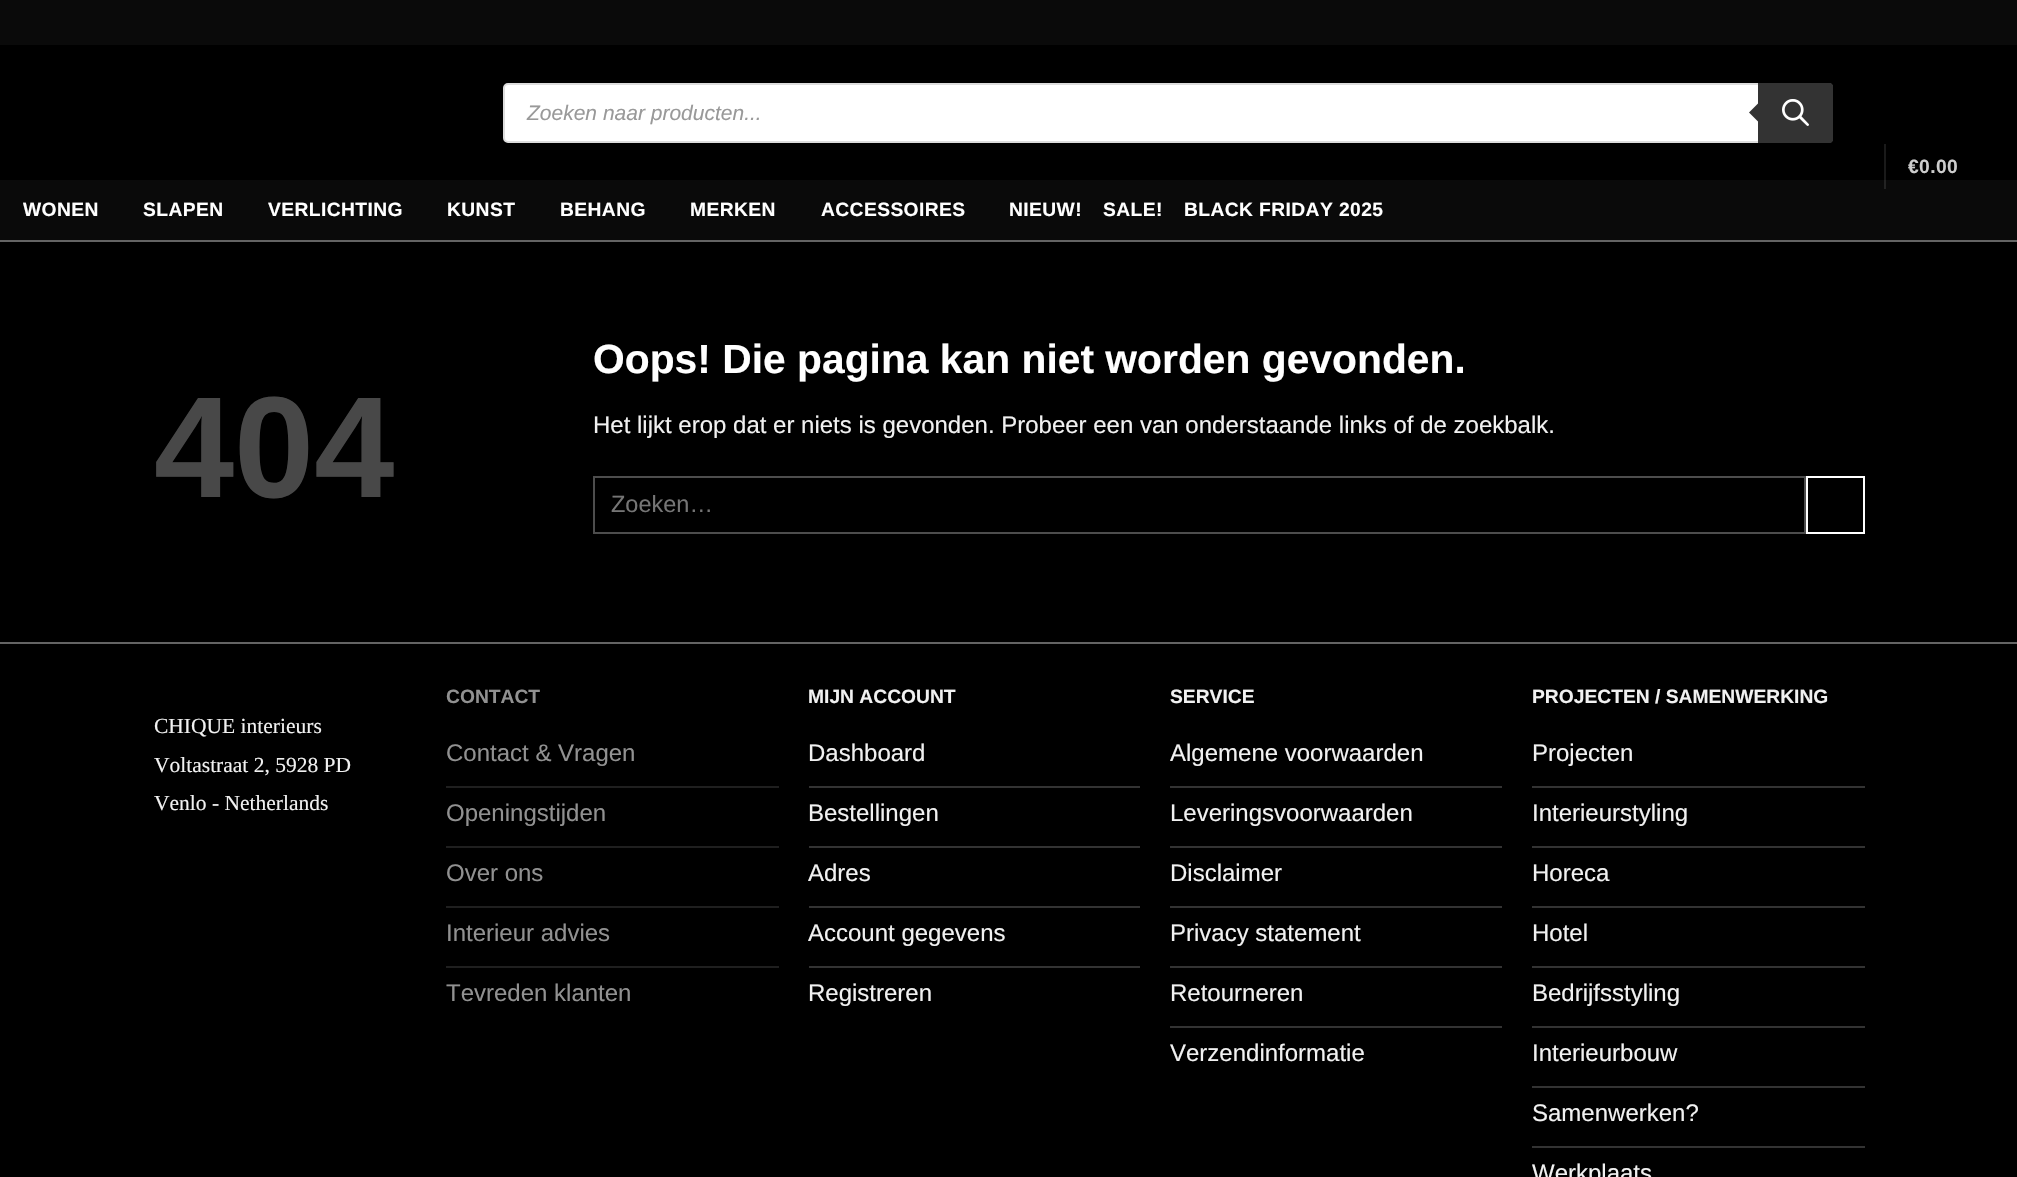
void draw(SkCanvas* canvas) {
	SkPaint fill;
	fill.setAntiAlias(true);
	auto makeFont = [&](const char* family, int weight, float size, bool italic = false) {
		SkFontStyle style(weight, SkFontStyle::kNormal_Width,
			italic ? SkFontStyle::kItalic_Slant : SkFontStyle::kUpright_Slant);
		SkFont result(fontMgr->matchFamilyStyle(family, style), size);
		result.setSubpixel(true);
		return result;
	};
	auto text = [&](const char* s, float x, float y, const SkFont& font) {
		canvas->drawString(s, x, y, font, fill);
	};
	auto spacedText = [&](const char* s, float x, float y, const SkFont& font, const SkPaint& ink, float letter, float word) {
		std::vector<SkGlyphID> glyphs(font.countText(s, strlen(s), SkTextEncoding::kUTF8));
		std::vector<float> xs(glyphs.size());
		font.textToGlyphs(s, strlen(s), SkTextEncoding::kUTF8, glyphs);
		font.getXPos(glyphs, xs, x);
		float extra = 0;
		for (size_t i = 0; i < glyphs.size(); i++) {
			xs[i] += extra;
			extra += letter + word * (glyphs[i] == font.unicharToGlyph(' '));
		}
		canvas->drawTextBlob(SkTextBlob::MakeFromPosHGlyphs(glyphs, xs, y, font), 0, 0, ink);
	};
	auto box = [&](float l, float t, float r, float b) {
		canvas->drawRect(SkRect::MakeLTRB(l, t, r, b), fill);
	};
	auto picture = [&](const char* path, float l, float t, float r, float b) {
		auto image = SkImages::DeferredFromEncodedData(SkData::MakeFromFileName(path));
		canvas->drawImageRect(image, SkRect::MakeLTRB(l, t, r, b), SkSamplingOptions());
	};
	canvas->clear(0xFF000000);
	fill.setColor(0xFF1A1A1A);
	box(1884, 144, 1886, 180);
	fill.setColor(0xFF0A0A0A);
	box(0, 0, 2017, 45);
	fill.setColor(0xFFFFFFFF);
	canvas->drawRoundRect(SkRect::MakeLTRB(504, 84, 1832, 142), 4, 4, fill);
	fill.setStyle(SkPaint::kStroke_Style);
	fill.setStrokeWidth(2);
	fill.setColor(0xFFDDDDDD);
	canvas->drawRoundRect(SkRect::MakeLTRB(504, 84, 1832, 142), 4, 4, fill);
	fill.setStyle(SkPaint::kFill_Style);
	fill.setColor(0xFF333333);
	canvas->drawPath(SkPathBuilder().moveTo(1758, 83).lineTo(1830, 83).cubicTo(1831.5f, 83, 1833, 84.5f, 1833, 86).lineTo(1833, 140).cubicTo(1833, 141.5f, 1831.5f, 143, 1830, 143).lineTo(1758, 143).close().detach(), fill);
	canvas->drawPath(SkPathBuilder().moveTo(1761, 100.5f).lineTo(1761, 124.5f).lineTo(1749, 112.5f).close().detach(), fill);
	picture("image0.png", 1782, 99, 1809, 126);
	fill.setColor(0xFF0A0A0A);
	box(0, 180, 2017, 240);
	fill.setColor(0xFF232323);
	box(1884, 180, 1886, 189);
	fill.setColor(0xFF646464);
	box(0, 240, 2017, 242);
	fill.setStyle(SkPaint::kStroke_Style);
	fill.setColor(0xFF4D4D4D);
	canvas->drawRect(SkRect::MakeLTRB(594, 477, 1805, 533), fill);
	fill.setColor(0xFFFFFFFF);
	canvas->drawRect(SkRect::MakeLTRB(1807, 477, 1864, 533), fill);
	fill.setStyle(SkPaint::kFill_Style);
	fill.setColor(0xFF646464);
	box(0, 642, 2017, 644);
	fill.setColor(0xFF1F1F1F);
	box(446, 786, 779, 788);
	box(446, 846, 779, 848);
	box(446, 906, 779, 908);
	box(446, 966, 779, 968);
	fill.setColor(0xFF333333);
	box(809, 786, 1140, 788);
	box(809, 846, 1140, 848);
	box(809, 906, 1140, 908);
	box(809, 966, 1140, 968);
	box(1170, 786, 1502, 788);
	box(1170, 846, 1502, 848);
	box(1170, 906, 1502, 908);
	box(1170, 966, 1502, 968);
	box(1170, 1026, 1502, 1028);
	box(1532, 786, 1865, 788);
	box(1532, 846, 1865, 848);
	box(1532, 906, 1865, 908);
	box(1532, 966, 1865, 968);
	box(1532, 1026, 1865, 1028);
	box(1532, 1086, 1865, 1088);
	box(1532, 1146, 1865, 1148);
	auto font1 = makeFont("Liberation Sans", 400, 21, true);
	fill.setColor(0xFF999999);
	text("Zoeken naar producten...", 527, 120, font1);
	auto font2 = makeFont("Liberation Sans", 700, 19.25f);
	fill.setColor(0xFFCCCCCC);
	spacedText("€0.00", 1908, 173, font2, fill, 0.4f, 0);
	fill.setColor(0xFFFFFFFF);
	spacedText("WONEN", 23, 216, font2, fill, 0.4f, 0);
	spacedText("SLAPEN", 143, 216, font2, fill, 0.4f, 0);
	spacedText("VERLICHTING", 268, 216, font2, fill, 0.4f, 0);
	spacedText("KUNST", 447, 216, font2, fill, 0.4f, 0);
	spacedText("BEHANG", 560, 216, font2, fill, 0.4f, 0);
	spacedText("MERKEN", 690, 216, font2, fill, 0.4f, 0);
	spacedText("ACCESSOIRES", 821, 216, font2, fill, 0.4f, 0);
	spacedText("NIEUW!", 1009, 216, font2, fill, 0.4f, 0);
	spacedText("SALE!", 1103, 216, font2, fill, 0.4f, 0);
	spacedText("BLACK FRIDAY 2025", 1184, 216, font2, fill, 0.4f, 0);
	auto font3 = makeFont("Liberation Sans", 700, 144);
	fill.setColor(0xFF484848);
	text("404", 154, 497, font3);
	auto font4 = makeFont("Liberation Sans", 700, 40.8f);
	fill.setColor(0xFFFFFFFF);
	text("Oops! Die pagina kan niet worden gevonden.", 593, 373, font4);
	auto font5 = makeFont("Liberation Sans", 400, 24);
	fill.setColor(0xFFF1F1F1);
	text("Het lijkt erop dat er niets is gevonden. Probeer een van onderstaande links of de zoekbalk.", 593, 433, font5);
	auto font6 = makeFont("Liberation Sans", 400, 23.5f);
	fill.setColor(0xFF757575);
	text("Zoeken…", 611, 512, font6);
	auto font7 = makeFont("Liberation Serif", 400, 21.5f);
	fill.setColor(0xFFF1F1F1);
	text("CHIQUE interieurs", 154, 733, font7);
	text("Voltastraat 2, 5928 PD", 154, 772, font7);
	text("Venlo - Netherlands", 154, 810, font7);
	fill.setColor(0xFF919191);
	text("CONTACT", 446, 703, font2);
	text("Contact & Vragen", 446, 761, font5);
	text("Openingstijden", 446, 821, font5);
	text("Over ons", 446, 881, font5);
	text("Interieur advies", 446, 941, font5);
	text("Tevreden klanten", 446, 1001, font5);
	fill.setColor(0xFFF1F1F1);
	text("MIJN ACCOUNT", 808, 703, font2);
	text("Dashboard", 808, 761, font5);
	text("Bestellingen", 808, 821, font5);
	text("Adres", 808, 881, font5);
	text("Account gegevens", 808, 941, font5);
	text("Registreren", 808, 1001, font5);
	text("SERVICE", 1170, 703, font2);
	text("Algemene voorwaarden", 1170, 761, font5);
	text("Leveringsvoorwaarden", 1170, 821, font5);
	text("Disclaimer", 1170, 881, font5);
	text("Privacy statement", 1170, 941, font5);
	text("Retourneren", 1170, 1001, font5);
	text("Verzendinformatie", 1170, 1061, font5);
	text("PROJECTEN / SAMENWERKING", 1532, 703, font2);
	text("Projecten", 1532, 761, font5);
	text("Interieurstyling", 1532, 821, font5);
	text("Horeca", 1532, 881, font5);
	text("Hotel", 1532, 941, font5);
	text("Bedrijfsstyling", 1532, 1001, font5);
	text("Interieurbouw", 1532, 1061, font5);
	text("Samenwerken?", 1532, 1121, font5);
	text("Werkplaats", 1532, 1181, font5);
}
